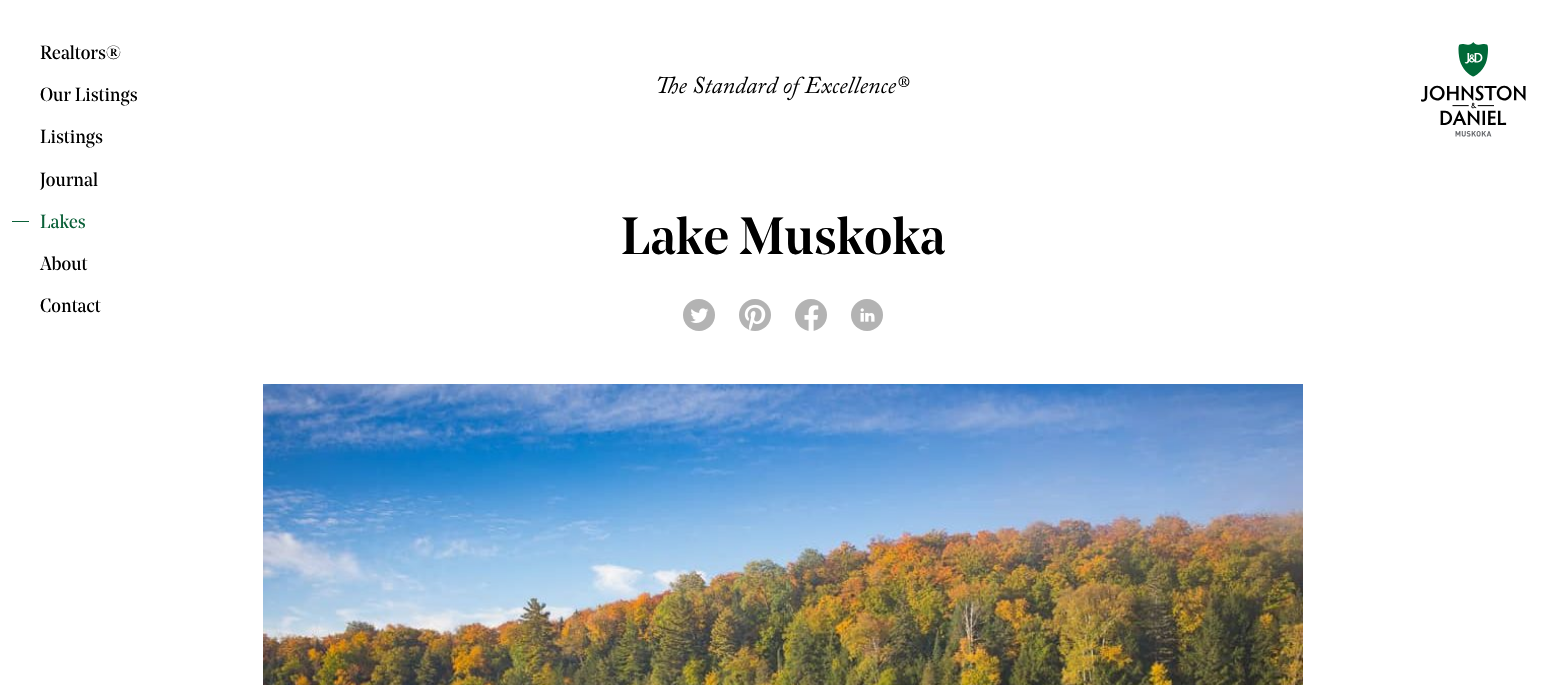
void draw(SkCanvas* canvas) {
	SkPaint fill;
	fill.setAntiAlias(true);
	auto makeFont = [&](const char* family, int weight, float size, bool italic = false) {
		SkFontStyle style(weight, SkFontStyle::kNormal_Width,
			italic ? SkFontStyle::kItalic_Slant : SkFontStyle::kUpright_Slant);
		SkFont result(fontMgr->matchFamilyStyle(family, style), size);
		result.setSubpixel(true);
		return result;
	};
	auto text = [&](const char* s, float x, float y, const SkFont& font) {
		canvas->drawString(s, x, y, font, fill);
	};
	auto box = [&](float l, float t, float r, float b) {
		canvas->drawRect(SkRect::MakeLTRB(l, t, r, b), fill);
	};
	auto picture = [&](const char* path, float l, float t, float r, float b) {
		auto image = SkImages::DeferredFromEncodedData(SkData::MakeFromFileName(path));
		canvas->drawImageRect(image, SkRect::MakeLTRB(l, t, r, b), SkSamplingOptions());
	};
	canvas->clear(0xFFFFFFFF);
	fill.setColor(0xFF0A6038);
	box(12, 221, 29, 222);
	picture("image0.png", 657, 76, 910, 101);
	picture("image1.png", 1421, 42, 1526, 137);
	fill.setColor(0xFFB3B3B3);
	canvas->drawCircle(699, 315, 16, fill);
	picture("image2.png", 690, 308, 709, 323);
	canvas->drawCircle(755, 315, 16, fill);
	picture("image3.png", 744, 304, 766, 330);
	canvas->drawCircle(811, 315, 16, fill);
	picture("image4.png", 804, 305, 819, 331);
	canvas->drawCircle(867, 315, 16, fill);
	picture("image5.png", 860, 308, 875, 322);
	picture("image6.png", 263, 384, 1303, 685);
	auto font1 = makeFont("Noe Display", 400, 19);
	fill.setColor(0xFF000000);
	text("Realtors®", 40, 59, font1);
	text("Our Listings", 40, 101, font1);
	text("Listings", 40, 143, font1);
	text("Journal", 40, 186, font1);
	fill.setColor(0xFF0A6038);
	text("Lakes", 40, 228, font1);
	fill.setColor(0xFF000000);
	text("About", 40, 270, font1);
	text("Contact", 40, 312, font1);
	auto font2 = makeFont("Noe Display", 500, 52);
	text("Lake Muskoka", 621, 254, font2);
}
